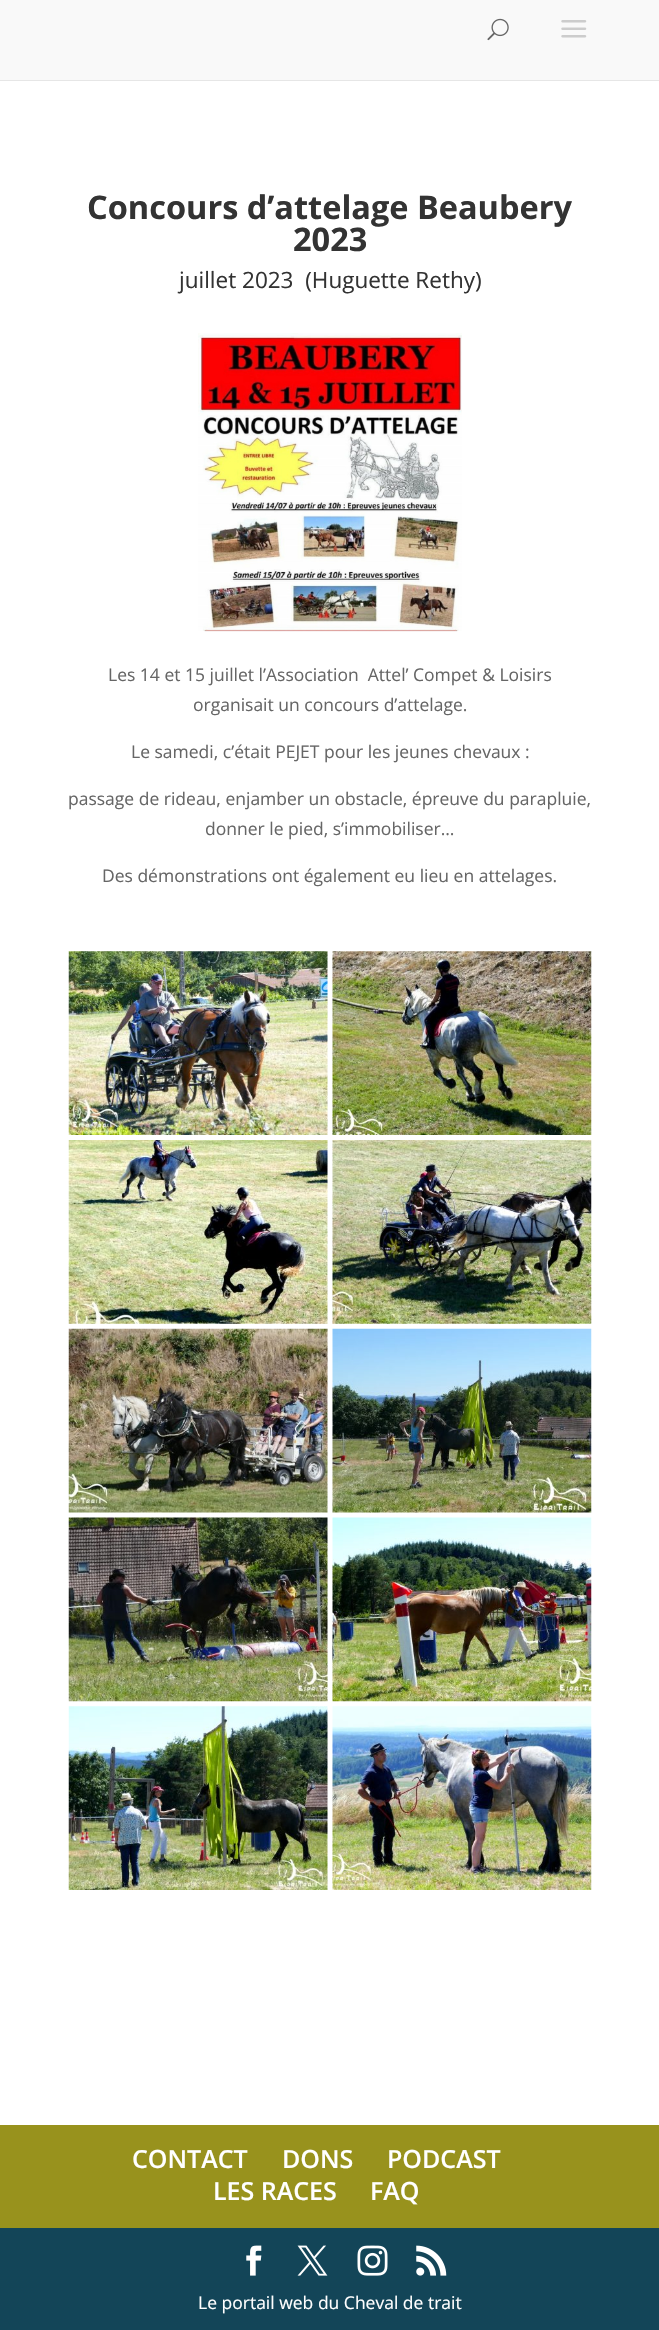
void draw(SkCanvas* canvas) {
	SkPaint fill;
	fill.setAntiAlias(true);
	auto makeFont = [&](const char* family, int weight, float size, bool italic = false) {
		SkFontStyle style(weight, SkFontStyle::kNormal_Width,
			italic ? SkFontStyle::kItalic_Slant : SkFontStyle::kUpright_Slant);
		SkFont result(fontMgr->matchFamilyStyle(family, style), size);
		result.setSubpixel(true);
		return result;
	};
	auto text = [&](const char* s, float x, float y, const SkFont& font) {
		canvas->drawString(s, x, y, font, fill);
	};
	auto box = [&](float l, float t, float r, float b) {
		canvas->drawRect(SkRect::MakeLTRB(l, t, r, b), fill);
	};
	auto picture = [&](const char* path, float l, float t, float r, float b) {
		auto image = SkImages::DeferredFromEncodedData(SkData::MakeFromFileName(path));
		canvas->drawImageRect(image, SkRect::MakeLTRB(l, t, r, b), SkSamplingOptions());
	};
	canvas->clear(0xFFFFFFFF);
	fill.setColor(0xFFE6E6E6);
	box(0, 80, 659, 81);
	fill.setColor(0xFFF9F9F9);
	box(0, 0, 659, 80);
	picture("image0.png", 487, 18, 509, 41);
	picture("image1.png", 561, 20, 587, 38);
	picture("image2.png", 198, 333, 462, 632);
	picture("image3.png", 68, 951, 328, 1135);
	picture("image4.png", 332, 951, 592, 1135);
	picture("image5.png", 68, 1140, 328, 1324);
	picture("image6.png", 332, 1140, 592, 1324);
	picture("image7.png", 68, 1328, 328, 1513);
	picture("image8.png", 332, 1328, 592, 1513);
	picture("image9.png", 68, 1517, 328, 1702);
	picture("image10.png", 332, 1517, 592, 1702);
	picture("image11.png", 68, 1706, 328, 1890);
	picture("image12.png", 332, 1706, 592, 1890);
	fill.setColor(0xFF98921D);
	box(0, 2125, 659, 2228);
	fill.setColor(0xFF134558);
	box(0, 2228, 659, 2330);
	picture("image13.png", 246, 2245, 262, 2276);
	picture("image14.png", 297, 2245, 328, 2276);
	picture("image15.png", 357, 2245, 388, 2276);
	picture("image16.png", 416, 2245, 447, 2276);
	auto font1 = makeFont("Open Sans", 700, 32.5f);
	fill.setColor(0xFF333333);
	text("Concours d’attelage Beaubery", 87, 219, font1);
	text("2023", 293, 251, font1);
	auto font2 = makeFont("Open Sans", 400, 22.5f);
	text("juillet 2023  (Huguette Rethy)", 179, 288, font2);
	auto font3 = makeFont("Open Sans", 400, 17.5f);
	fill.setColor(0xFF666666);
	text("Les 14 et 15 juillet l’Association  Attel’ Compet & Loisirs", 108, 681, font3);
	text("organisait un concours d’attelage.", 193, 711, font3);
	text("Le samedi, c’était PEJET pour les jeunes chevaux :", 131, 758, font3);
	text("passage de rideau, enjamber un obstacle, épreuve du parapluie,", 68, 805, font3);
	text("donner le pied, s’immobiliser…", 205, 835, font3);
	text("Des démonstrations ont également eu lieu en attelages.", 102, 882, font3);
	auto font4 = makeFont("Open Sans", 600, 25);
	fill.setColor(0xFFFFFFFF);
	text("CONTACT", 132, 2168, font4);
	text("DONS", 282, 2168, font4);
	text("PODCAST", 387, 2168, font4);
	text("LES RACES", 213, 2200, font4);
	text("FAQ", 370, 2200, font4);
	text("Le portail web du Cheval de trait", 198, 2309, font3);
}
